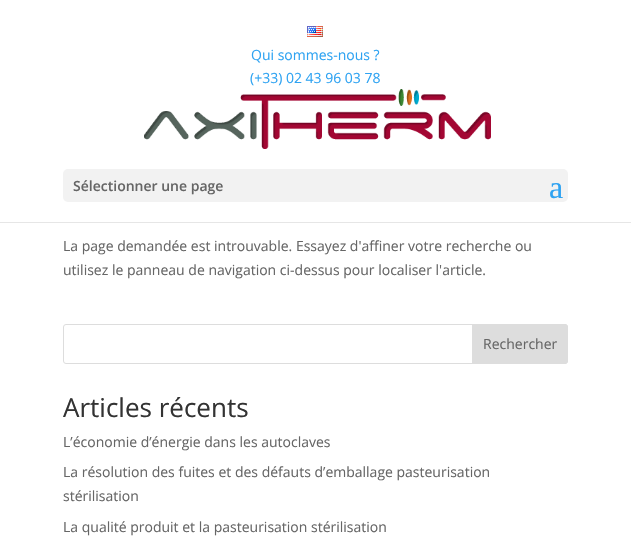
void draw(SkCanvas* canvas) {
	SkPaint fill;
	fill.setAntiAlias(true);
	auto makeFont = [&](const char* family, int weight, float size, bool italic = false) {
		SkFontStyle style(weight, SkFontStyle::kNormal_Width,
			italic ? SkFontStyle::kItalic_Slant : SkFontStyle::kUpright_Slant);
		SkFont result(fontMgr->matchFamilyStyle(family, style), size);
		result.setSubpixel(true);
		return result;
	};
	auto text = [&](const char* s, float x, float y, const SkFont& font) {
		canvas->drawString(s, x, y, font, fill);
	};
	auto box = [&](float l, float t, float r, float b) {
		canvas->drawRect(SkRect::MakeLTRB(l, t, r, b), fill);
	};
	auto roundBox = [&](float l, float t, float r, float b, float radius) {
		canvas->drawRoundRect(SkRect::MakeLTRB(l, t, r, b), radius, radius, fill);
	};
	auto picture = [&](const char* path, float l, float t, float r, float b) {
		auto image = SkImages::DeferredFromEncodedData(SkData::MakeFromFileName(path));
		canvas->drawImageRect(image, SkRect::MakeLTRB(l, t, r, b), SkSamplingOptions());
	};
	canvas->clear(0xFFFFFFFF);
	fill.setColor(0xFFE6E6E6);
	box(0, 222, 631, 223);
	picture("image0.png", 307, 26, 323, 37);
	picture("image1.png", 144, 89, 491, 149);
	fill.setColor(0xFFF2F2F2);
	roundBox(63, 169, 568, 202, 5);
	fill.setStyle(SkPaint::kStroke_Style);
	fill.setStrokeWidth(1);
	fill.setColor(0xFFDDDDDD);
	canvas->drawRoundRect(SkRect::MakeLTRB(63.5f, 324.5f, 567.5f, 363.5f), 2.5f, 2.5f, fill);
	fill.setStyle(SkPaint::kFill_Style);
	canvas->drawPath(SkPathBuilder().moveTo(472.5f, 324.5f).lineTo(565, 324.5f).cubicTo(566.5f, 324.5f, 567.5f, 325.5f, 567.5f, 327).lineTo(567.5f, 361).cubicTo(567.5f, 362.5f, 566.5f, 363.5f, 565, 363.5f).lineTo(472.5f, 363.5f).close().detach(), fill);
	fill.setStyle(SkPaint::kStroke_Style);
	canvas->drawPath(SkPathBuilder().moveTo(472.5f, 324.5f).lineTo(565, 324.5f).cubicTo(566.5f, 324.5f, 567.5f, 325.5f, 567.5f, 327).lineTo(567.5f, 361).cubicTo(567.5f, 362.5f, 566.5f, 363.5f, 565, 363.5f).lineTo(472.5f, 363.5f).close().detach(), fill);
	auto font1 = makeFont("Open Sans", 400, 14);
	fill.setStyle(SkPaint::kFill_Style);
	fill.setColor(0xFF2EA3F2);
	text("Qui sommes-nous ?", 251, 60, font1);
	text("(+33) 02 43 96 03 78", 250, 83, font1);
	auto font2 = makeFont("Open Sans", 600, 14);
	fill.setColor(0xFF666666);
	text("Sélectionner une page", 73, 191, font2);
	auto font3 = makeFont("Liberation Serif", 400, 32);
	fill.setColor(0xFF2EA3F2);
	text("a", 549, 198, font3);
	fill.setColor(0xFF666666);
	text("La page demandée est introuvable. Essayez d'affiner votre recherche ou", 63, 251, font1);
	text("utilisez le panneau de navigation ci-dessus pour localiser l'article.", 63, 275, font1);
	text("Rechercher", 483, 349, font1);
	auto font4 = makeFont("Open Sans", 400, 26);
	fill.setColor(0xFF333333);
	text("Articles récents", 63, 417, font4);
	fill.setColor(0xFF666666);
	text("L’économie d’énergie dans les autoclaves", 63, 447, font1);
	text("La résolution des fuites et des défauts d’emballage pasteurisation", 63, 477, font1);
	text("stérilisation", 63, 501, font1);
	text("La qualité produit et la pasteurisation stérilisation", 63, 532, font1);
}
